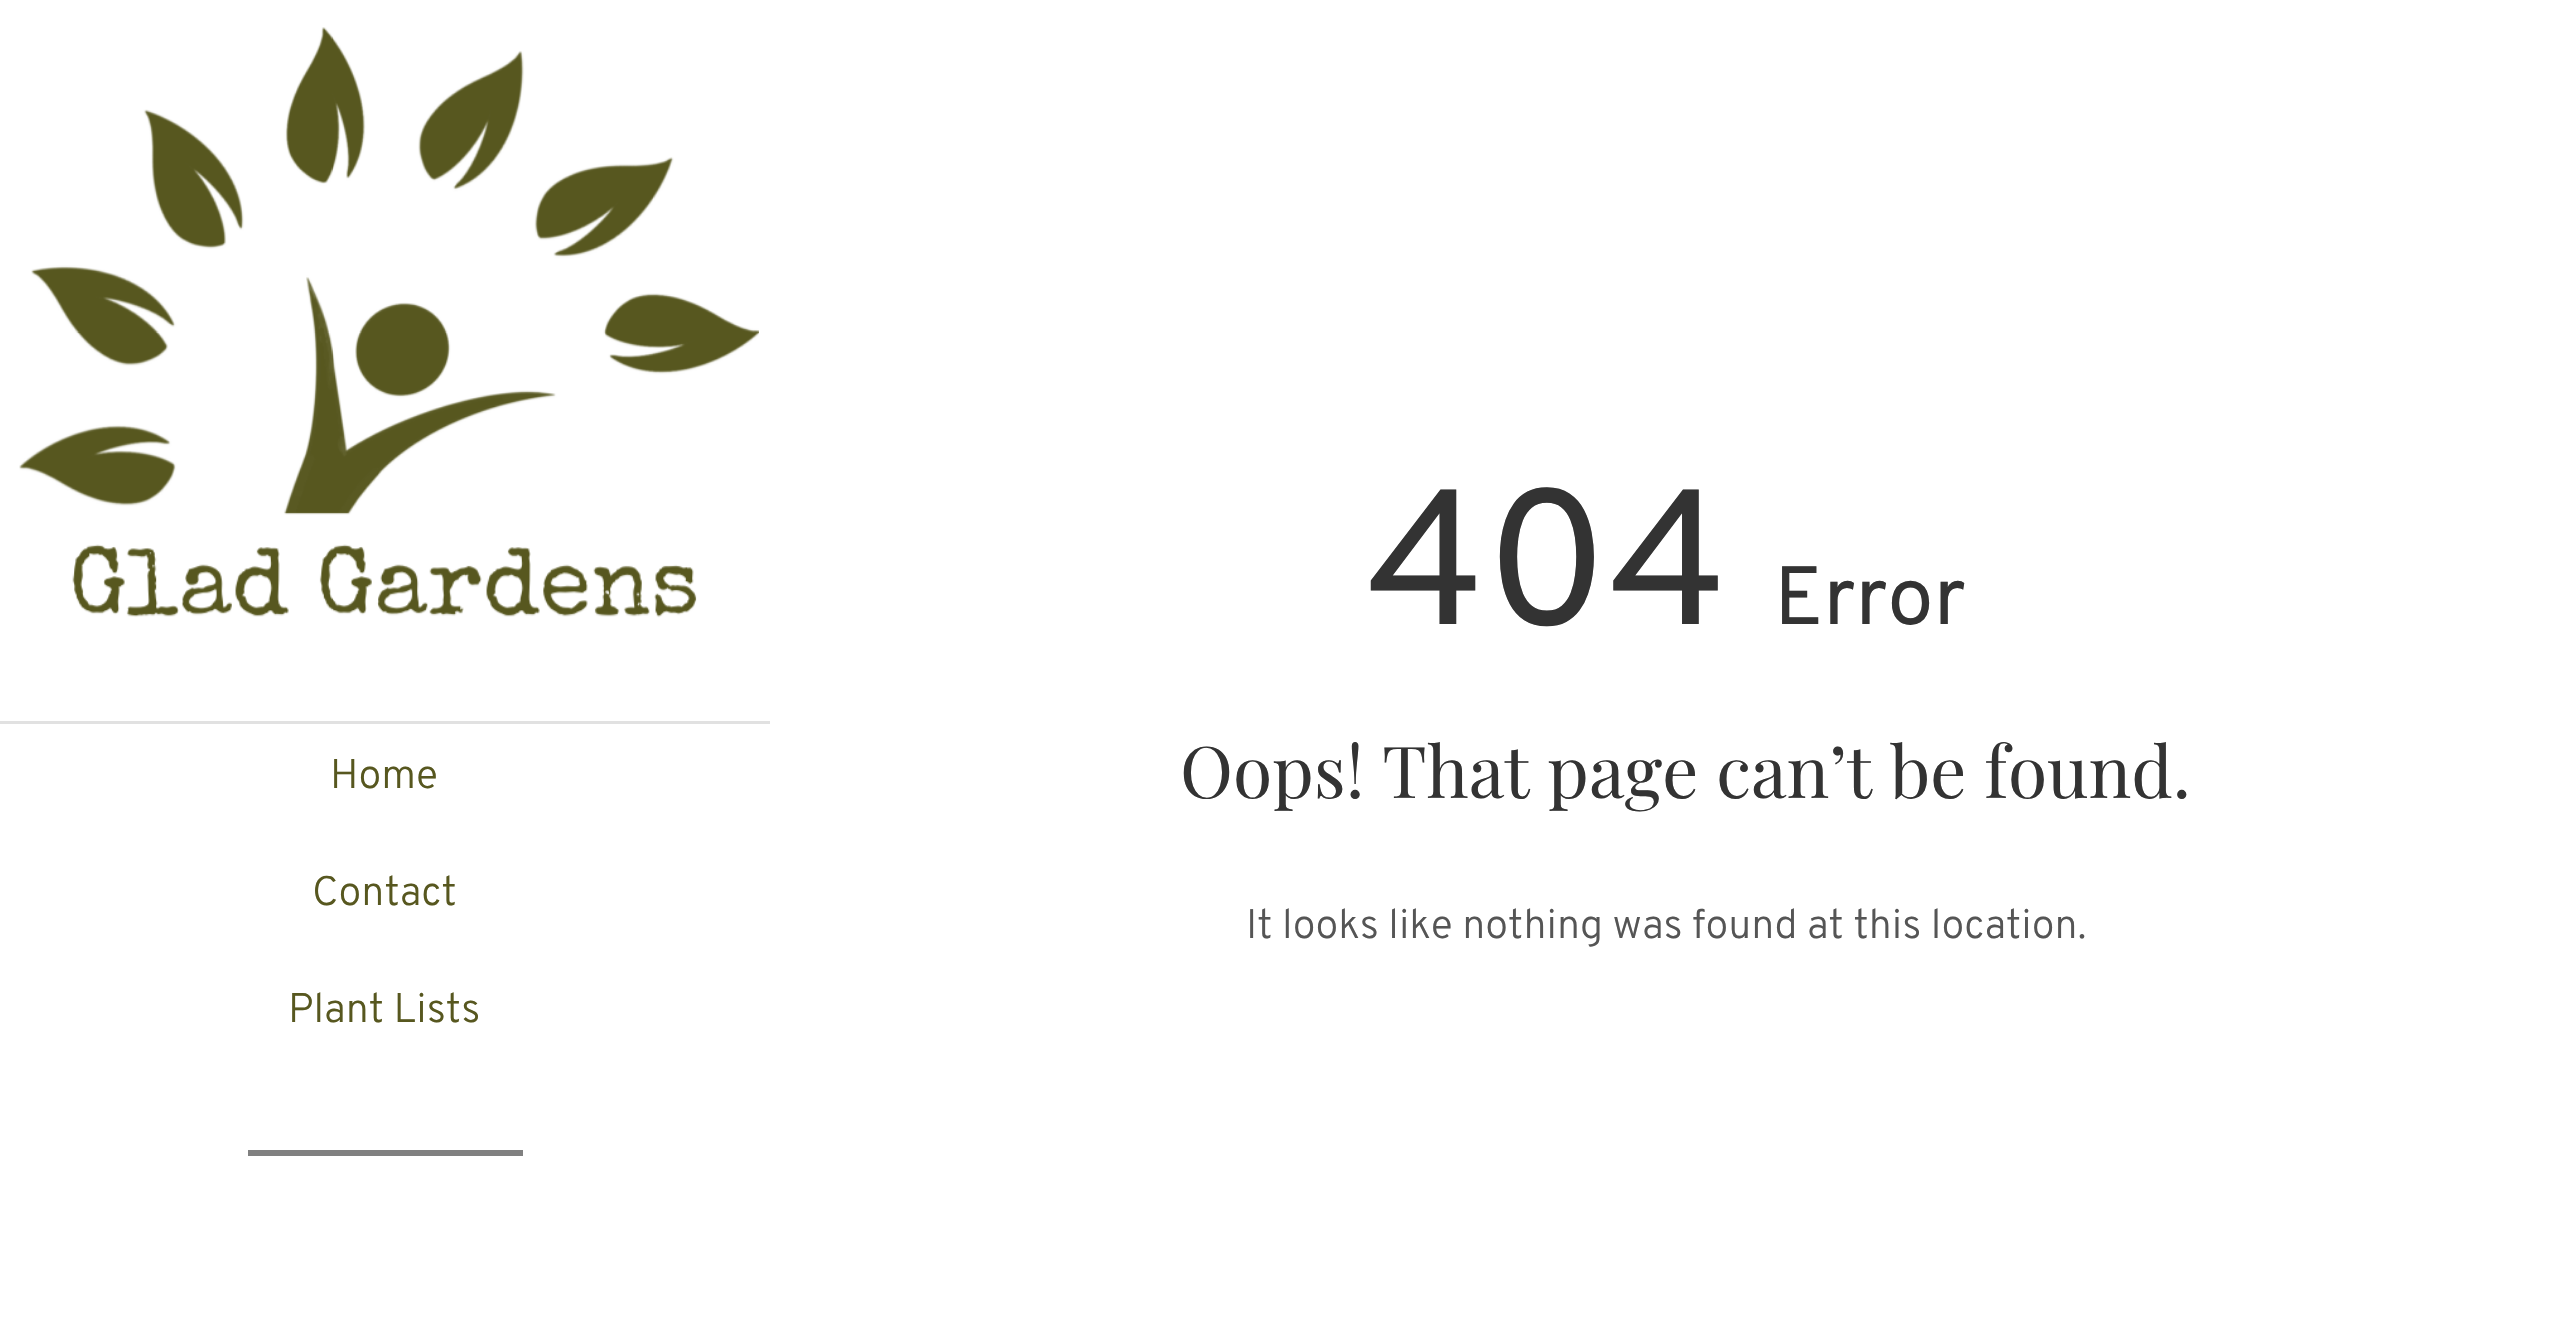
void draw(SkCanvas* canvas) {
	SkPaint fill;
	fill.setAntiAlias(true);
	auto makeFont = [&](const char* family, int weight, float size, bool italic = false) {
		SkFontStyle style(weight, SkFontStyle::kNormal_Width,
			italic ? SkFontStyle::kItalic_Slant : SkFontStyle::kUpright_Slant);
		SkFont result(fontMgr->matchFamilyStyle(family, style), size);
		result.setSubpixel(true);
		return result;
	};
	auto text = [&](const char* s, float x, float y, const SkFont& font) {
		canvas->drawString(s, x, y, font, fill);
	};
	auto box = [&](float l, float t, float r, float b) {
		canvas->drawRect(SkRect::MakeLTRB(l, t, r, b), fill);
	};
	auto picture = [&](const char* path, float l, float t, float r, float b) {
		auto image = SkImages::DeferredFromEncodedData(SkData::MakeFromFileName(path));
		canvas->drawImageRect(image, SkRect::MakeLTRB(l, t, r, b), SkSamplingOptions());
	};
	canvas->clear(0xFFFFFFFF);
	picture("image0.png", 19, 27, 759, 618);
	fill.setColor(0xFFE1E1E1);
	box(0, 721, 770, 724);
	fill.setColor(0xFF808080);
	box(248, 1150, 523, 1156);
	auto font1 = makeFont("Overpass", 300, 41.25f);
	fill.setColor(0xFF57571F);
	text("Home", 330, 788, font1);
	text("Contact", 312, 905, font1);
	text("Plant Lists", 288, 1022, font1);
	auto font2 = makeFont("Overpass", 400, 192);
	fill.setColor(0xFF333333);
	text("404", 1366, 624, font2);
	auto font3 = makeFont("Overpass", 400, 82.5f);
	text("Error", 1774, 624, font3);
	auto font4 = makeFont("Playfair Display", 400, 71.5f);
	text("Oops! That page can’t be found.", 1180, 798, font4);
	fill.setColor(0xFF555555);
	text("It looks like nothing was found at this location.", 1246, 938, font1);
}
